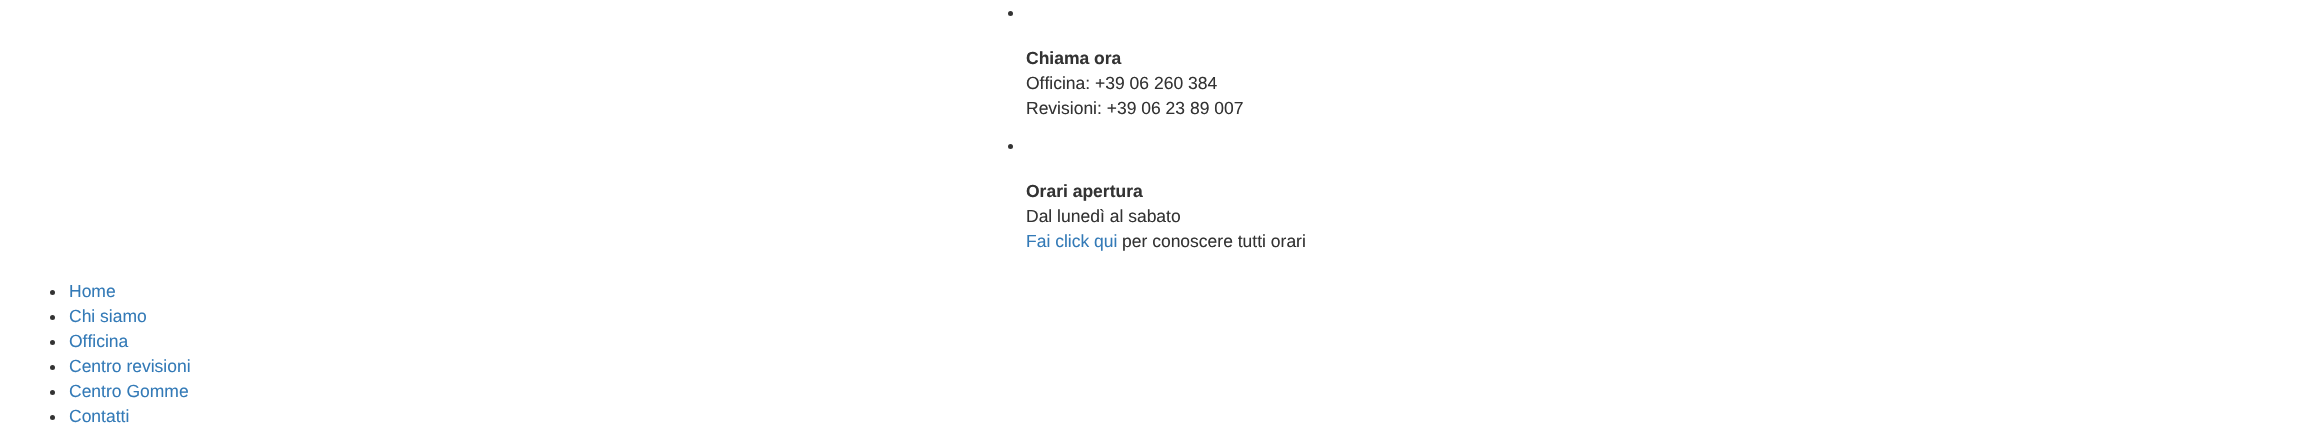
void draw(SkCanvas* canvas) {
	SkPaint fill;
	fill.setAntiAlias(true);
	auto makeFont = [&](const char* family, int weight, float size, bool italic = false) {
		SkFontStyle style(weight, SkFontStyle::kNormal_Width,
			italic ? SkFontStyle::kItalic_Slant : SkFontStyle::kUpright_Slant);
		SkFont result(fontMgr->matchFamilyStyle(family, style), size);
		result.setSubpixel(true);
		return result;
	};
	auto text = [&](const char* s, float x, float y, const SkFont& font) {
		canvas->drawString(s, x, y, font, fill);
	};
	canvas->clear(0xFFFFFFFF);
	fill.setColor(0xFF333333);
	canvas->drawCircle(1010.5f, 13.5f, 2.5f, fill);
	canvas->drawCircle(1010.5f, 146.5f, 2.5f, fill);
	canvas->drawCircle(52.5f, 292.5f, 2.5f, fill);
	canvas->drawCircle(52.5f, 317.5f, 2.5f, fill);
	canvas->drawCircle(52.5f, 342.5f, 2.5f, fill);
	canvas->drawCircle(52.5f, 367.5f, 2.5f, fill);
	canvas->drawCircle(52.5f, 392.5f, 2.5f, fill);
	canvas->drawCircle(52.5f, 417.5f, 2.5f, fill);
	auto font1 = makeFont("Liberation Sans", 700, 17.5f);
	text("Chiama ora", 1026, 64, font1);
	auto font2 = makeFont("Liberation Sans", 400, 17.5f);
	text("Officina: +39 06 260 384", 1026, 89, font2);
	text("Revisioni: +39 06 23 89 007", 1026, 114, font2);
	text("Orari apertura", 1026, 197, font1);
	text("Dal lunedì al sabato", 1026, 222, font2);
	fill.setColor(0xFF337AB7);
	text("Fai click qui", 1026, 247, font2);
	fill.setColor(0xFF333333);
	text("per conoscere tutti orari", 1122, 247, font2);
	fill.setColor(0xFF337AB7);
	text("Home", 69, 297, font2);
	text("Chi siamo", 69, 322, font2);
	text("Officina", 69, 347, font2);
	text("Centro revisioni", 69, 372, font2);
	text("Centro Gomme", 69, 397, font2);
	text("Contatti", 69, 422, font2);
}
